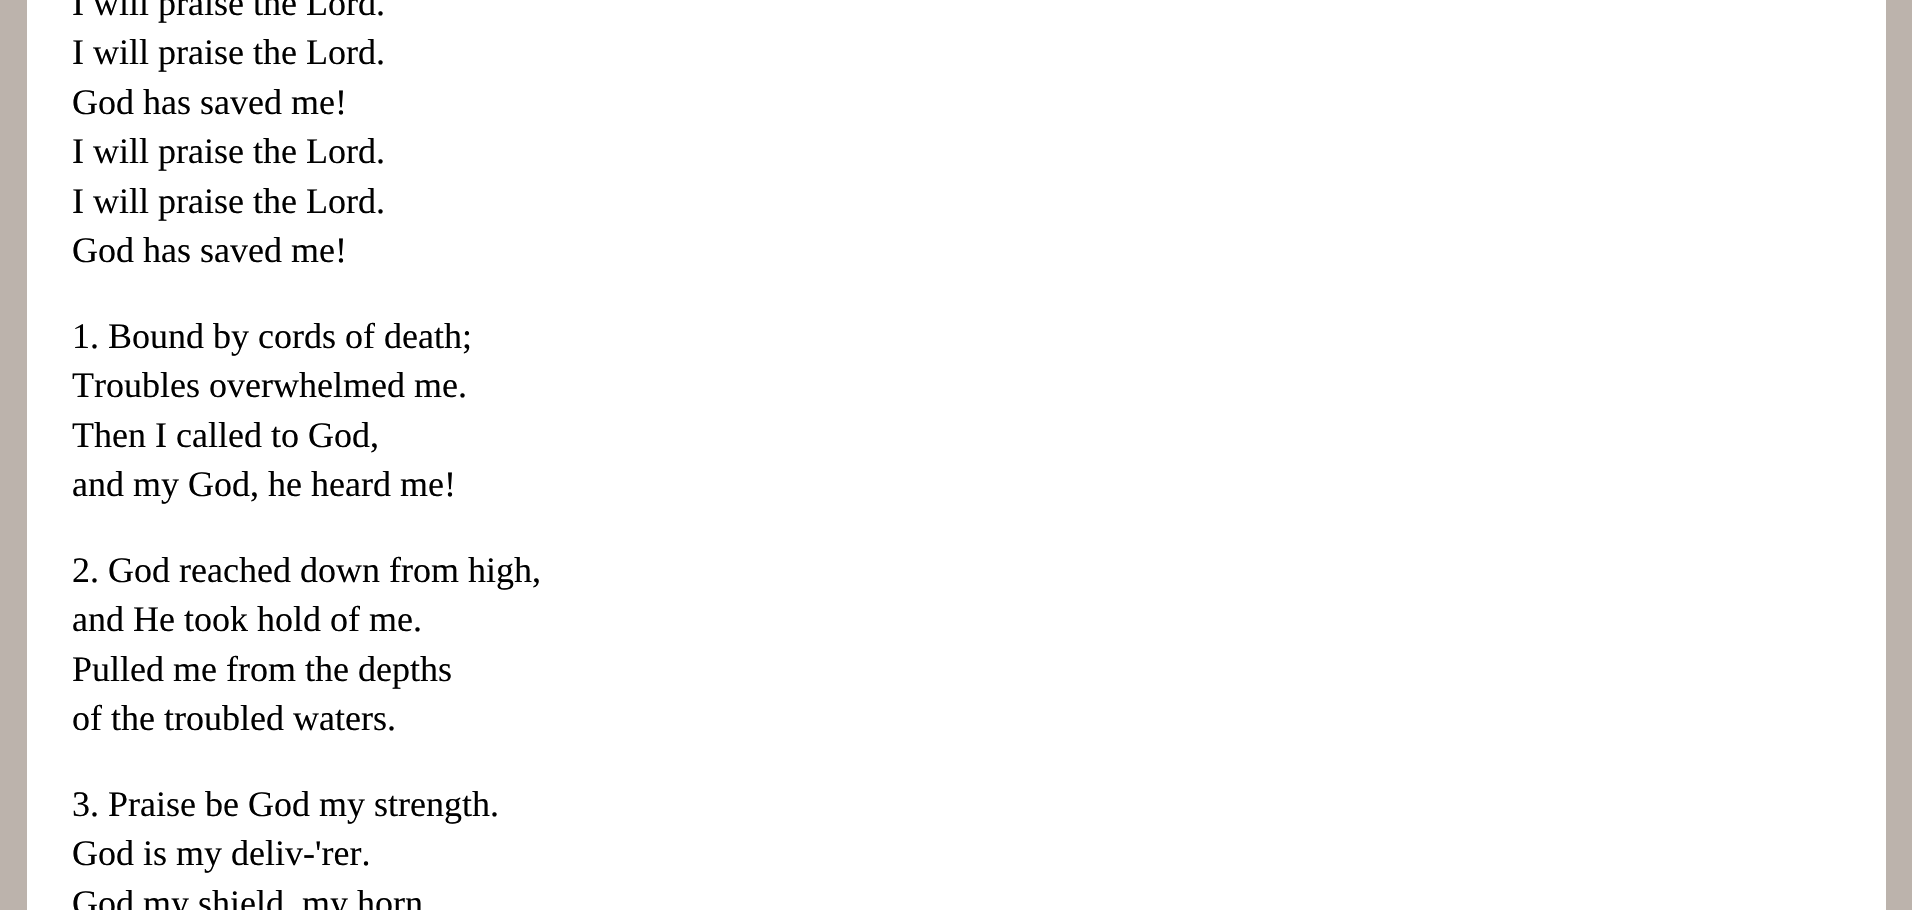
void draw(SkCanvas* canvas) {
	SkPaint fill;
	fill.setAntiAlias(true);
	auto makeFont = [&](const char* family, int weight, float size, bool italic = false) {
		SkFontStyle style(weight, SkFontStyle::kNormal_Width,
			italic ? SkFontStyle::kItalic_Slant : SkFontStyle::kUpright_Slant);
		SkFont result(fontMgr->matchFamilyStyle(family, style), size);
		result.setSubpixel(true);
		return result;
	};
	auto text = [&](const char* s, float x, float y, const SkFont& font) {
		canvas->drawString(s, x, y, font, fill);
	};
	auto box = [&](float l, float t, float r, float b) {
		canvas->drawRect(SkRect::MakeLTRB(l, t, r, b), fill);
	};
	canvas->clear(0xFFBCB3AC);
	fill.setColor(0xFFFFFFFF);
	box(27, 0, 1886, 910);
	auto font1 = makeFont("Liberation Serif", 400, 36);
	fill.setColor(0xFF000000);
	text("I will praise the Lord.", 72, 15, font1);
	text("I will praise the Lord.", 72, 64, font1);
	text("God has saved me!", 72, 114, font1);
	text("I will praise the Lord.", 72, 163, font1);
	text("I will praise the Lord.", 72, 213, font1);
	text("God has saved me!", 72, 262, font1);
	text("1. Bound by cords of death;", 72, 348, font1);
	text("Troubles overwhelmed me.", 72, 397, font1);
	text("Then I called to God,", 72, 447, font1);
	text("and my God, he heard me!", 72, 496, font1);
	text("2. God reached down from high,", 72, 582, font1);
	text("and He took hold of me.", 72, 631, font1);
	text("Pulled me from the depths", 72, 681, font1);
	text("of the troubled waters.", 72, 730, font1);
	text("3. Praise be God my strength.", 72, 816, font1);
	text("God is my deliv-'rer.", 72, 865, font1);
	text("God my shield, my horn", 72, 915, font1);
}
